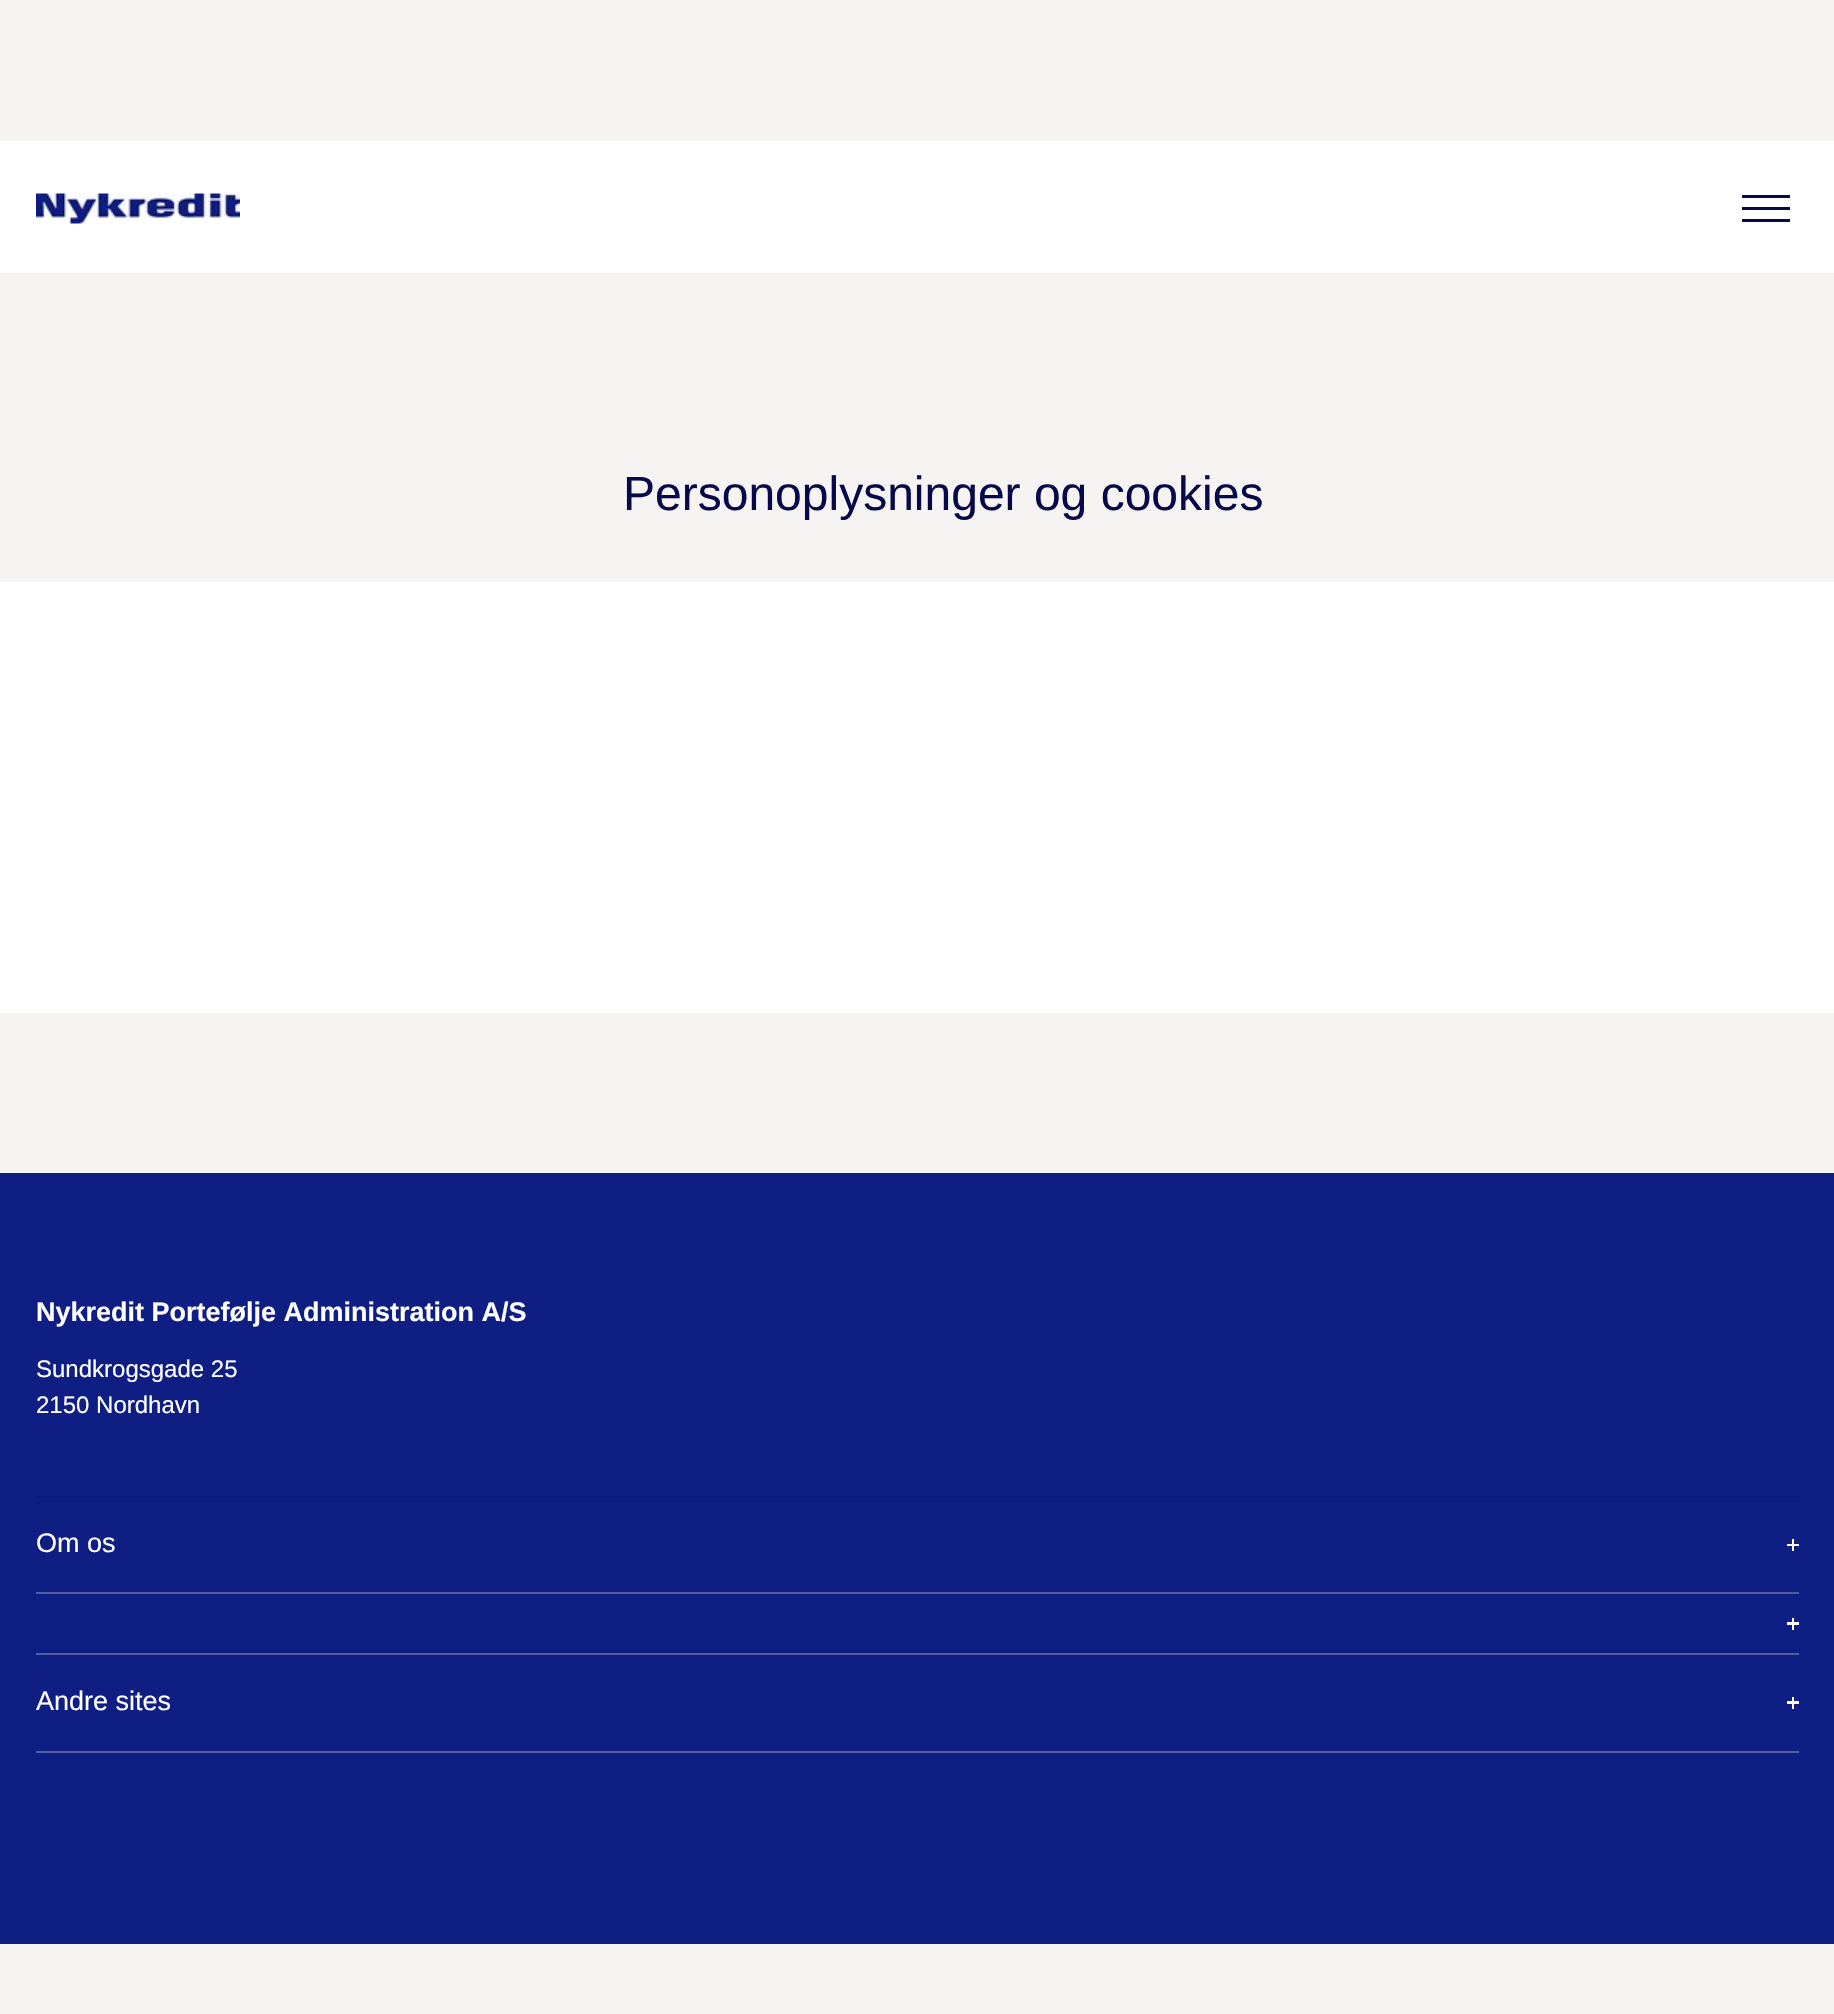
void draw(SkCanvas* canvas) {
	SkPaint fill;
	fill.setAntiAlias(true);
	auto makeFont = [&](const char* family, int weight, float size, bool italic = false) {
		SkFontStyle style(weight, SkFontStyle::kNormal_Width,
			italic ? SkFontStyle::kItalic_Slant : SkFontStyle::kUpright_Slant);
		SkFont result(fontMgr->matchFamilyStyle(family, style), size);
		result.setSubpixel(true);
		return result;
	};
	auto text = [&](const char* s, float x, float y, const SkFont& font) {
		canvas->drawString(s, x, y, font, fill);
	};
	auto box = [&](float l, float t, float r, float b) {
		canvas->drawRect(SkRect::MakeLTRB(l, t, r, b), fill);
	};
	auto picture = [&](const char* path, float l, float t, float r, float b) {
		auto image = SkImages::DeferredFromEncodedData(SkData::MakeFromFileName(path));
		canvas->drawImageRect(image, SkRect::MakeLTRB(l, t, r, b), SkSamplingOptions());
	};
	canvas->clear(0xFFF6F4F3);
	fill.setColor(0xFFFFFFFF);
	box(0, 141, 1834, 273);
	picture("image0.png", 36, 193, 240, 224);
	fill.setColor(0xFF07094A);
	box(1742, 195, 1790, 198);
	box(1742, 207, 1790, 210);
	box(1742, 219, 1790, 222);
	fill.setColor(0xFFFFFFFF);
	box(0, 582, 1834, 1013);
	fill.setColor(0xFF0F1E82);
	box(0, 1173, 1834, 1944);
	fill.setColor(0xFF0D1A77);
	box(36, 1496, 1799, 1498);
	fill.setColor(0xFF525DA5);
	box(36, 1592, 1799, 1594);
	fill.setColor(0xFFFFFFFF);
	box(1792, 1539, 1794, 1551);
	box(1787, 1544, 1799, 1546);
	fill.setColor(0xFF525DA5);
	box(36, 1653, 1799, 1655);
	fill.setColor(0xFFFFFFFF);
	box(1792, 1618, 1794, 1630);
	box(1787, 1622, 1799, 1625);
	fill.setColor(0xFF525DA5);
	box(36, 1751, 1799, 1753);
	fill.setColor(0xFFFFFFFF);
	box(1792, 1697, 1794, 1709);
	box(1787, 1701, 1799, 1704);
	auto font1 = makeFont("Liberation Sans", 400, 48);
	fill.setColor(0xFF07094A);
	text("Personoplysninger og cookies", 623, 510, font1);
	auto font2 = makeFont("Liberation Sans", 700, 27);
	fill.setColor(0xFFFFFFFF);
	text("Nykredit Portefølje Administration A/S", 36, 1321, font2);
	auto font3 = makeFont("Liberation Sans", 400, 24);
	text("Sundkrogsgade 25", 36, 1377, font3);
	text("2150 Nordhavn", 36, 1413, font3);
	auto font4 = makeFont("Liberation Sans", 400, 27);
	text("Om os", 36, 1552, font4);
	text("Andre sites", 36, 1710, font4);
}
